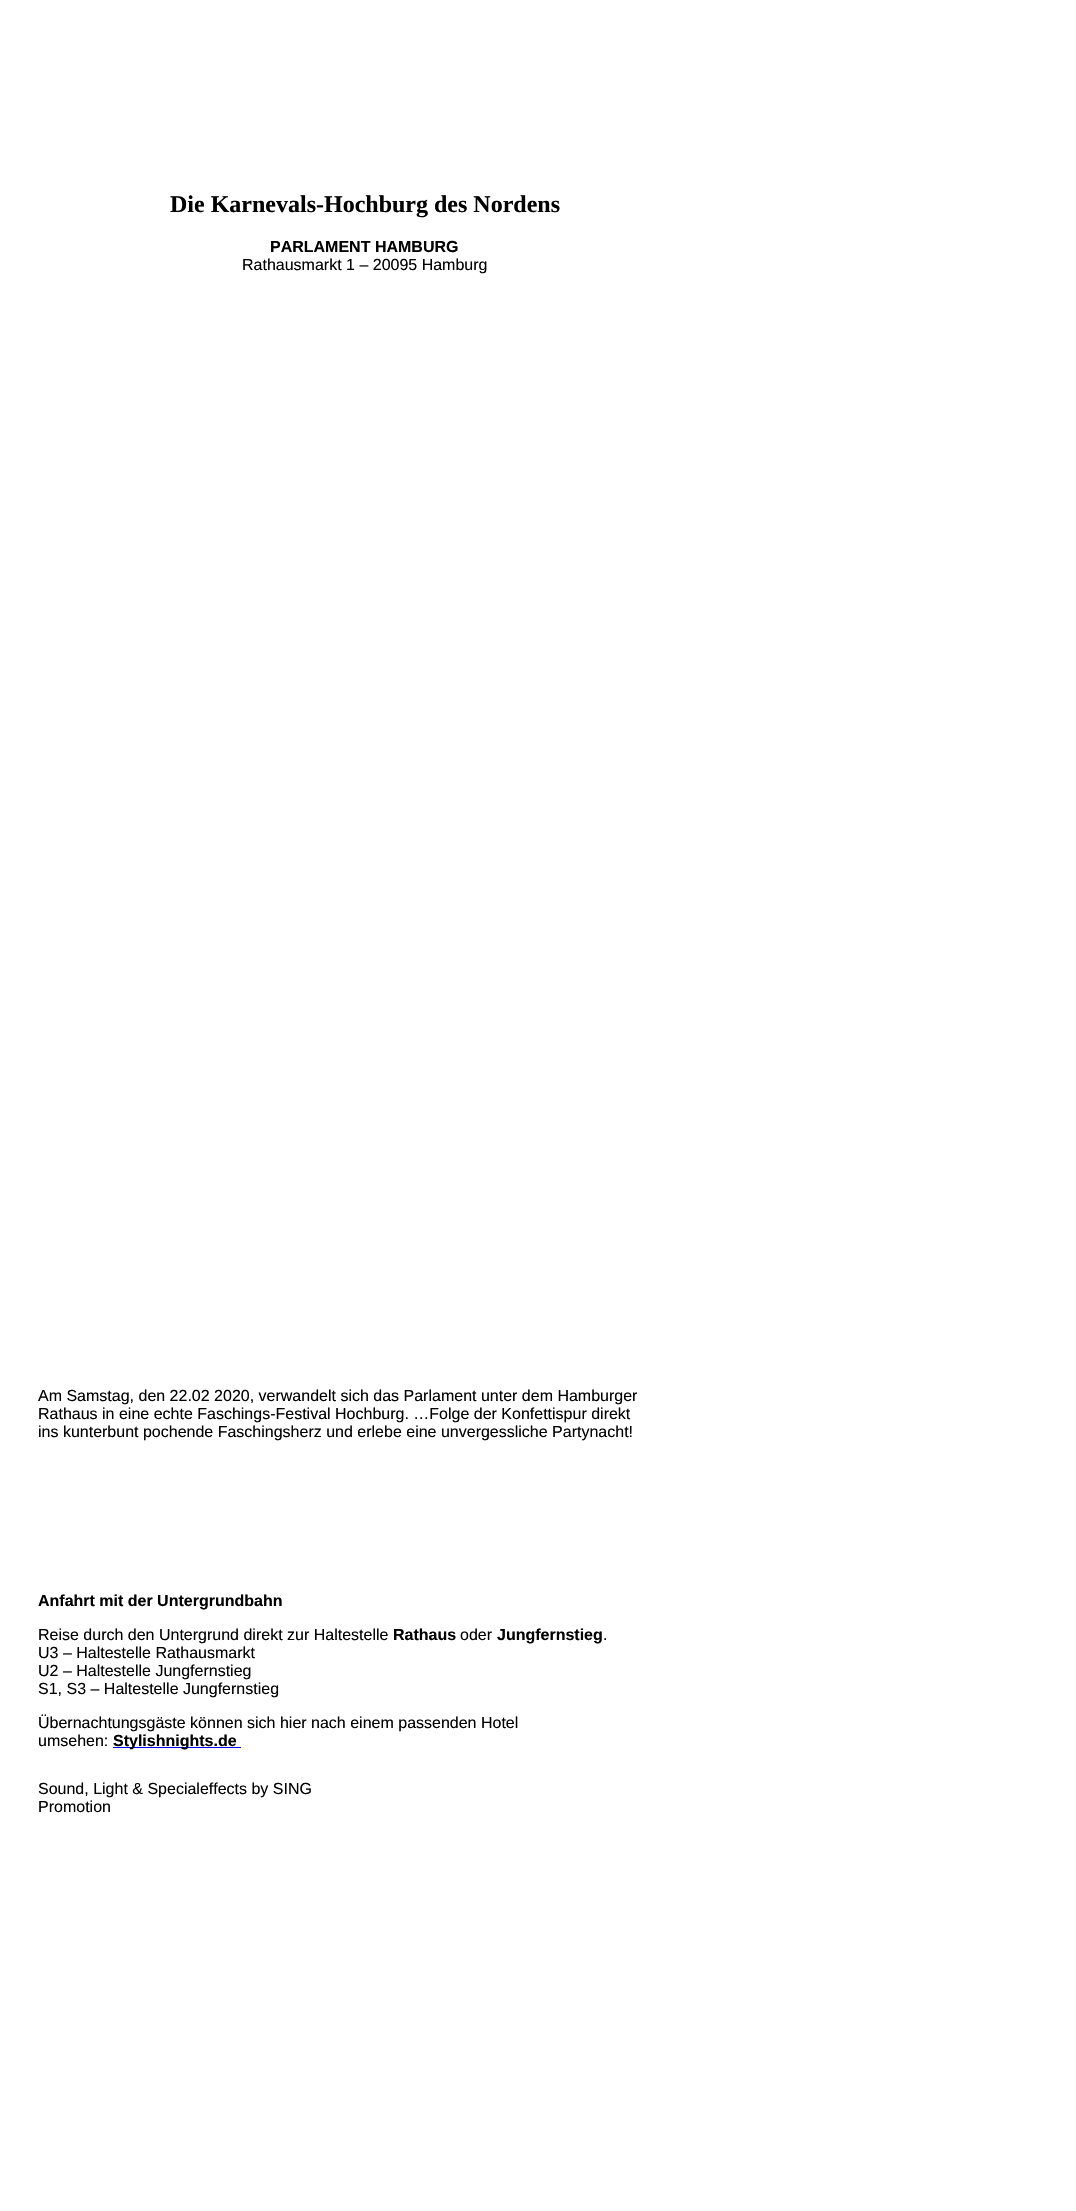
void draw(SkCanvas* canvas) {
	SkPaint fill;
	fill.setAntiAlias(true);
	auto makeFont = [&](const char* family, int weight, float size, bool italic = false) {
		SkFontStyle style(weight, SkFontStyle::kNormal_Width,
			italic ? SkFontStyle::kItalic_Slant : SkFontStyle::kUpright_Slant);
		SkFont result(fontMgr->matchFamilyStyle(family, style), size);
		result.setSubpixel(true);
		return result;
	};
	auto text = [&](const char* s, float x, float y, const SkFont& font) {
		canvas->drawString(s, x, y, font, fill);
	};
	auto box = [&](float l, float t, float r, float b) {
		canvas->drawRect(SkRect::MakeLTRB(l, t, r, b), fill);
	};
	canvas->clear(0xFFFFFFFF);
	fill.setColor(0xFF0000EE);
	box(113, 1747, 241, 1748);
	auto font1 = makeFont("Liberation Serif", 700, 24);
	fill.setColor(0xFF000000);
	text("Die Karnevals-Hochburg des Nordens", 170, 212, font1);
	auto font2 = makeFont("Liberation Sans", 700, 16);
	text("PARLAMENT HAMBURG", 270, 252, font2);
	auto font3 = makeFont("Liberation Sans", 400, 16);
	text("Rathausmarkt 1 – 20095 Hamburg", 242, 270, font3);
	text("Am Samstag, den 22.02 2020, verwandelt sich das Parlament unter dem Hamburger", 38, 1401, font3);
	text("Rathaus in eine echte Faschings-Festival Hochburg. …Folge der Konfettispur direkt", 38, 1419, font3);
	text("ins kunterbunt pochende Faschingsherz und erlebe eine unvergessliche Partynacht!", 38, 1437, font3);
	text("Anfahrt mit der Untergrundbahn", 38, 1606, font2);
	text("Reise durch den Untergrund direkt zur Haltestelle", 38, 1640, font3);
	text("Rathaus", 393, 1640, font2);
	text("oder", 460, 1640, font3);
	text("Jungfernstieg", 497, 1640, font2);
	text(".", 603, 1640, font3);
	text("U3 – Haltestelle Rathausmarkt", 38, 1658, font3);
	text("U2 – Haltestelle Jungfernstieg", 38, 1676, font3);
	text("S1, S3 – Haltestelle Jungfernstieg", 38, 1694, font3);
	text("Übernachtungsgäste können sich hier nach einem passenden Hotel", 38, 1728, font3);
	text("umsehen:", 38, 1746, font3);
	text("Stylishnights.de", 113, 1746, font2);
	text("Sound, Light & Specialeffects by SING", 38, 1794, font3);
	text("Promotion", 38, 1812, font3);
}
